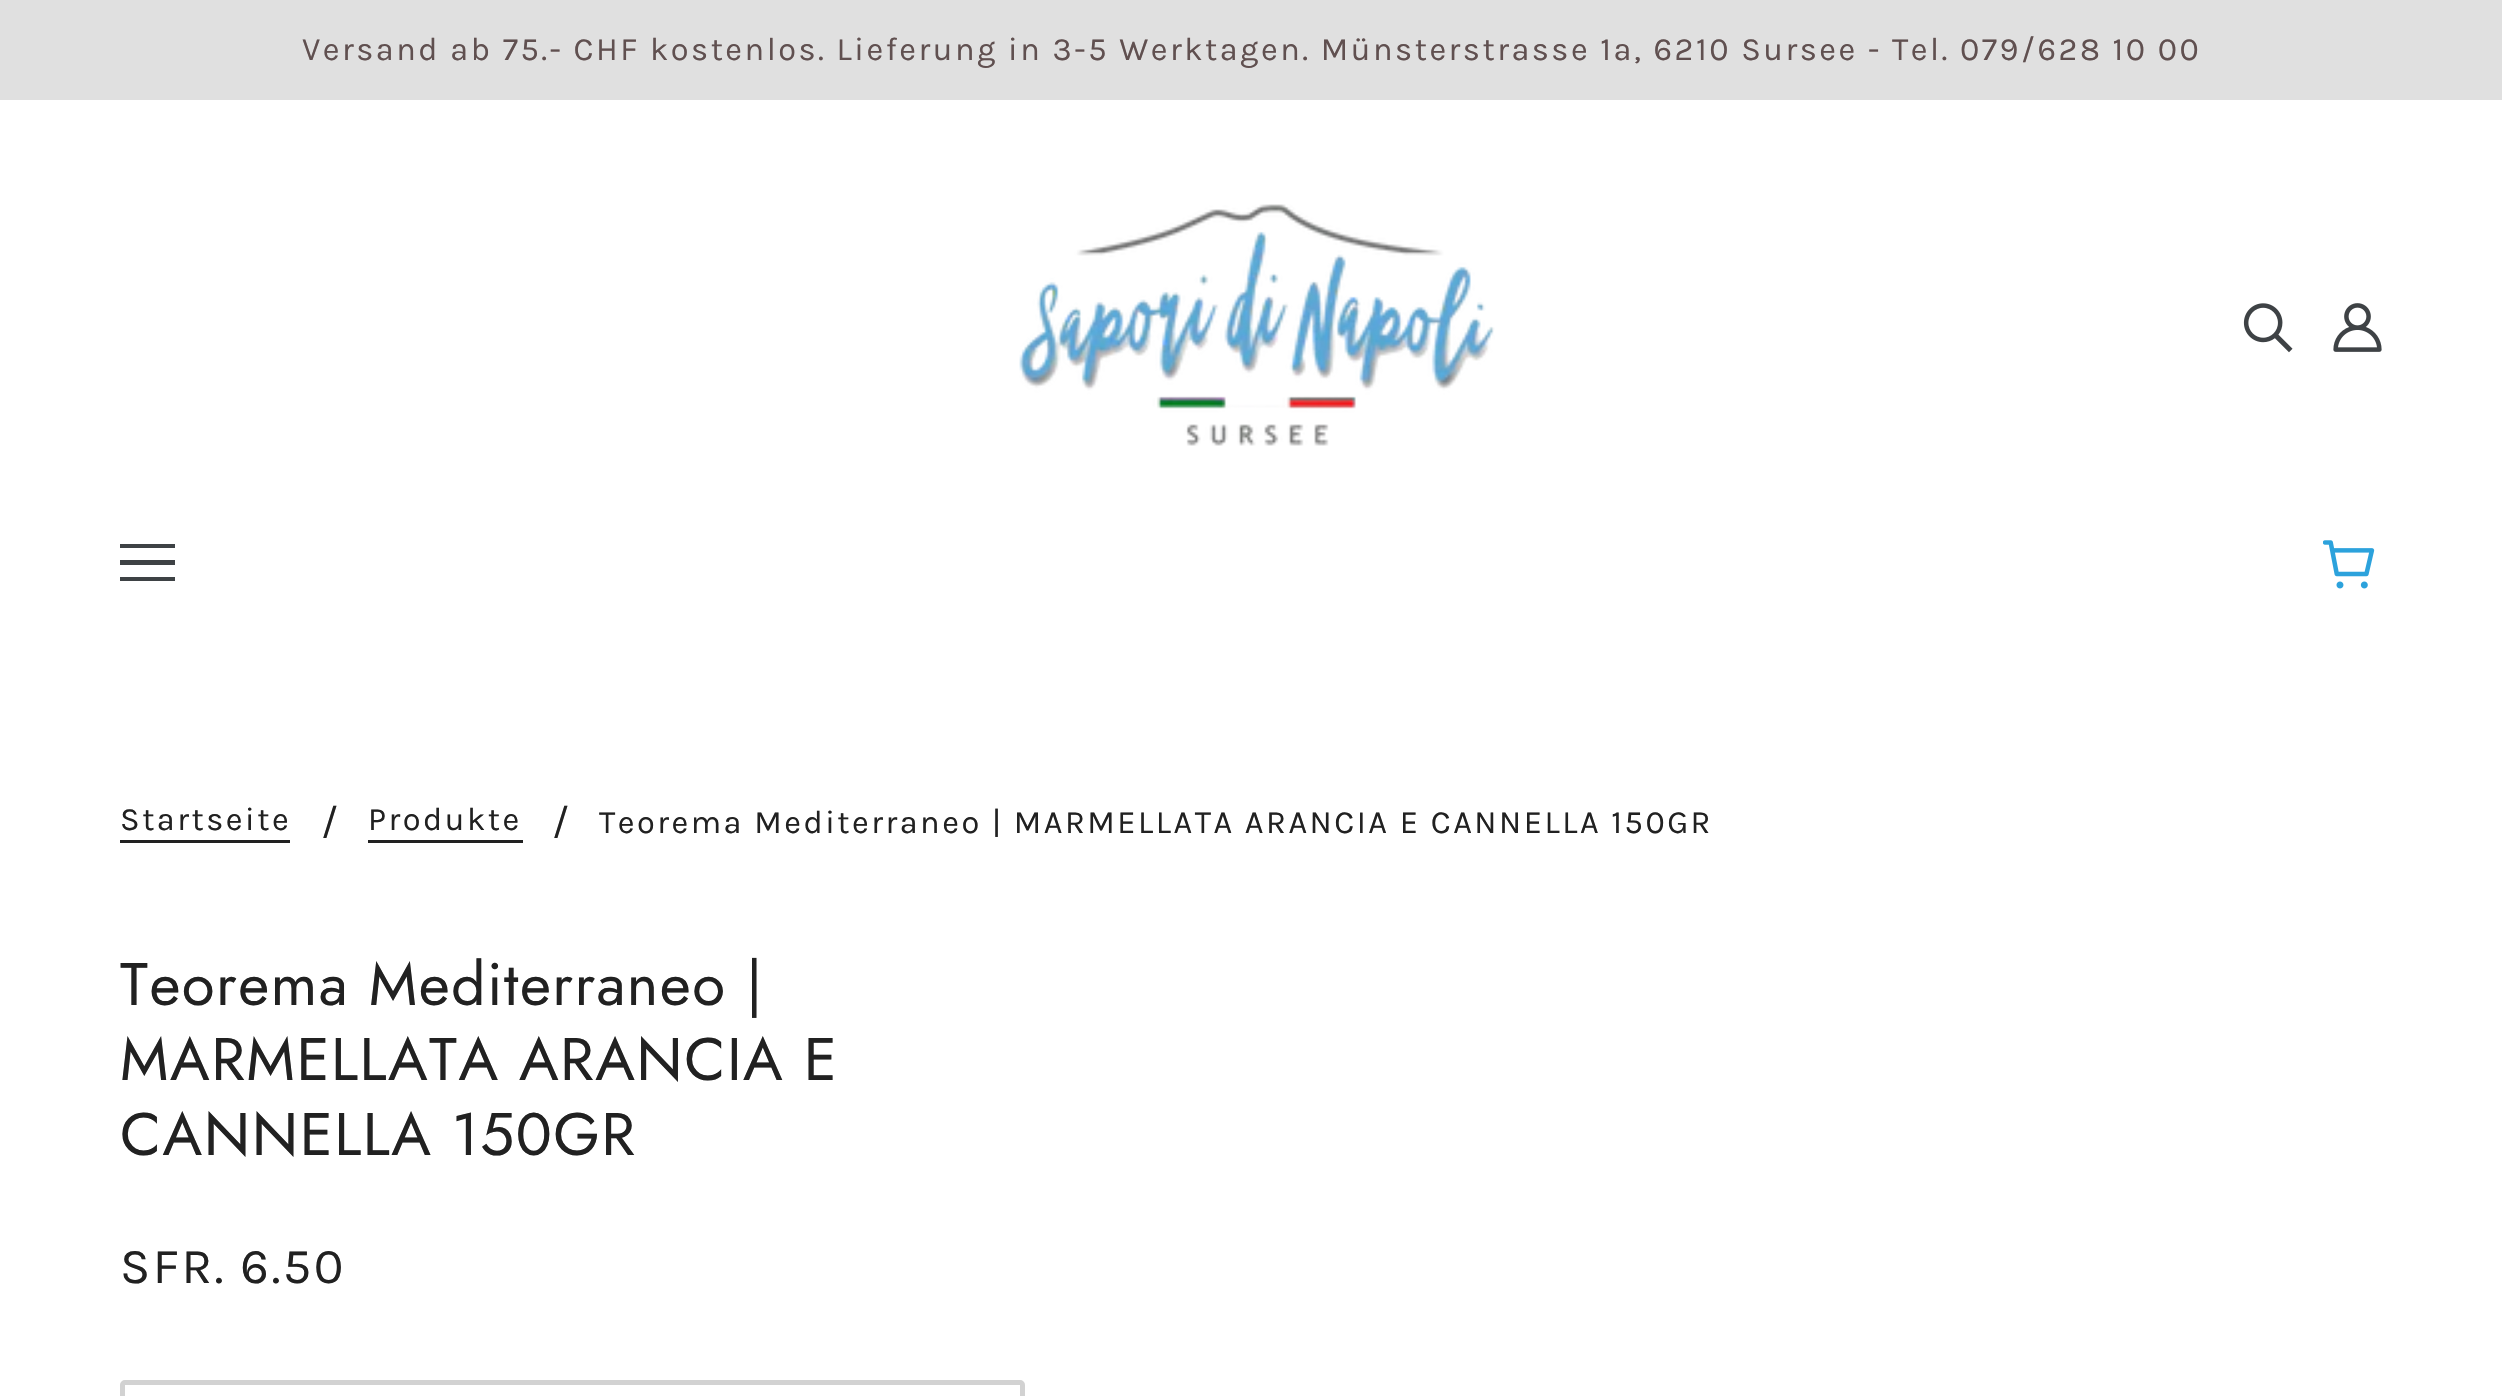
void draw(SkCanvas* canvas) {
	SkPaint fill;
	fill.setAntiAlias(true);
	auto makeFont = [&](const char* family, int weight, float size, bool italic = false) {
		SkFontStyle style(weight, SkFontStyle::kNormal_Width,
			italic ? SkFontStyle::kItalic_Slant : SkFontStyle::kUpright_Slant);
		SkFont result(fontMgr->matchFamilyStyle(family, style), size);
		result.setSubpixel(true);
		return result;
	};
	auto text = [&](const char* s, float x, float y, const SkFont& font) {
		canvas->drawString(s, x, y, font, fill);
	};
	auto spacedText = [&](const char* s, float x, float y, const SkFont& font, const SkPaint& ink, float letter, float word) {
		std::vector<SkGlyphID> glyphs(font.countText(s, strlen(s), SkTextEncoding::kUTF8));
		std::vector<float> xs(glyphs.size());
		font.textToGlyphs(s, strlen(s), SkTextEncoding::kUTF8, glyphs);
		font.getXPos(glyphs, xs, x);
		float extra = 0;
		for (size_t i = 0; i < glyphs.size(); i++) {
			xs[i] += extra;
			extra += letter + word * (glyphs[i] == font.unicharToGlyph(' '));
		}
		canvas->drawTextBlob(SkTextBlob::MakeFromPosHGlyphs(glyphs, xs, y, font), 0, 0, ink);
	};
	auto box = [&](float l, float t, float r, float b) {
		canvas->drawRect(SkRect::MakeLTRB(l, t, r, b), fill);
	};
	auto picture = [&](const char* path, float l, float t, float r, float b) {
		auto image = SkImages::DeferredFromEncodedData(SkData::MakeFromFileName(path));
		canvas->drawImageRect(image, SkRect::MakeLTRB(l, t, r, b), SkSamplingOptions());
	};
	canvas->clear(0xFFFFFFFF);
	fill.setColor(0xFFE0E0E0);
	box(0, 0, 2502, 100);
	picture("image0.png", 1019, 204, 1495, 446);
	picture("image1.png", 2243, 303, 2293, 353);
	picture("image2.png", 2333, 303, 2382, 352);
	fill.setColor(0xFF3E4245);
	canvas->drawPath(SkPathBuilder().moveTo(120, 548).lineTo(120, 544).lineTo(175, 544).lineTo(175, 548).close().moveTo(120, 565).lineTo(120, 560).lineTo(175, 560).lineTo(175, 565).close().moveTo(120, 581).lineTo(120, 577).lineTo(175, 577).lineTo(175, 581).close().detach(), fill);
	picture("image3.png", 2323, 540, 2375, 589);
	fill.setColor(0xFF212121);
	box(120, 840, 290, 843);
	box(368, 840, 523, 843);
	fill.setStyle(SkPaint::kStroke_Style);
	fill.setStrokeWidth(5);
	fill.setColor(0xFFD2D2D2);
	canvas->drawRoundRect(SkRect::MakeLTRB(122.5f, 1382.5f, 1022.5f, 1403.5f), 2.5f, 2.5f, fill);
	auto font1 = makeFont("Karla", 400, 32.5f);
	fill.setStyle(SkPaint::kFill_Style);
	fill.setColor(0xFF605050);
	spacedText("Versand ab 75.- CHF kostenlos. Lieferung in 3-5 Werktagen. Münsterstrasse 1a, 6210 Sursee - Tel. 079/628 10 00", 302, 60, font1, fill, 2.5f, 0);
	fill.setColor(0xFF212121);
	spacedText("Startseite", 120, 830, font1, fill, 2.5f, 0);
	auto font2 = makeFont("Karla", 400, 40);
	text("/", 321, 835, font2);
	spacedText("Produkte", 368, 830, font1, fill, 2.5f, 0);
	text("/", 552, 835, font2);
	spacedText("Teorema Mediterraneo | MARMELLATA ARANCIA E CANNELLA 150GR", 599, 833, font1, fill, 2.5f, 0);
	auto font3 = makeFont("Jost", 400, 60);
	spacedText("Teorema Mediterraneo |", 120, 1005, font3, fill, 1.5f, 0);
	spacedText("MARMELLATA ARANCIA E", 120, 1080, font3, fill, 1.5f, 0);
	spacedText("CANNELLA 150GR", 120, 1155, font3, fill, 1.5f, 0);
	auto font4 = makeFont("Karla", 400, 50);
	spacedText("SFR. 6.50", 120, 1283, font4, fill, 2.5f, 0);
}
